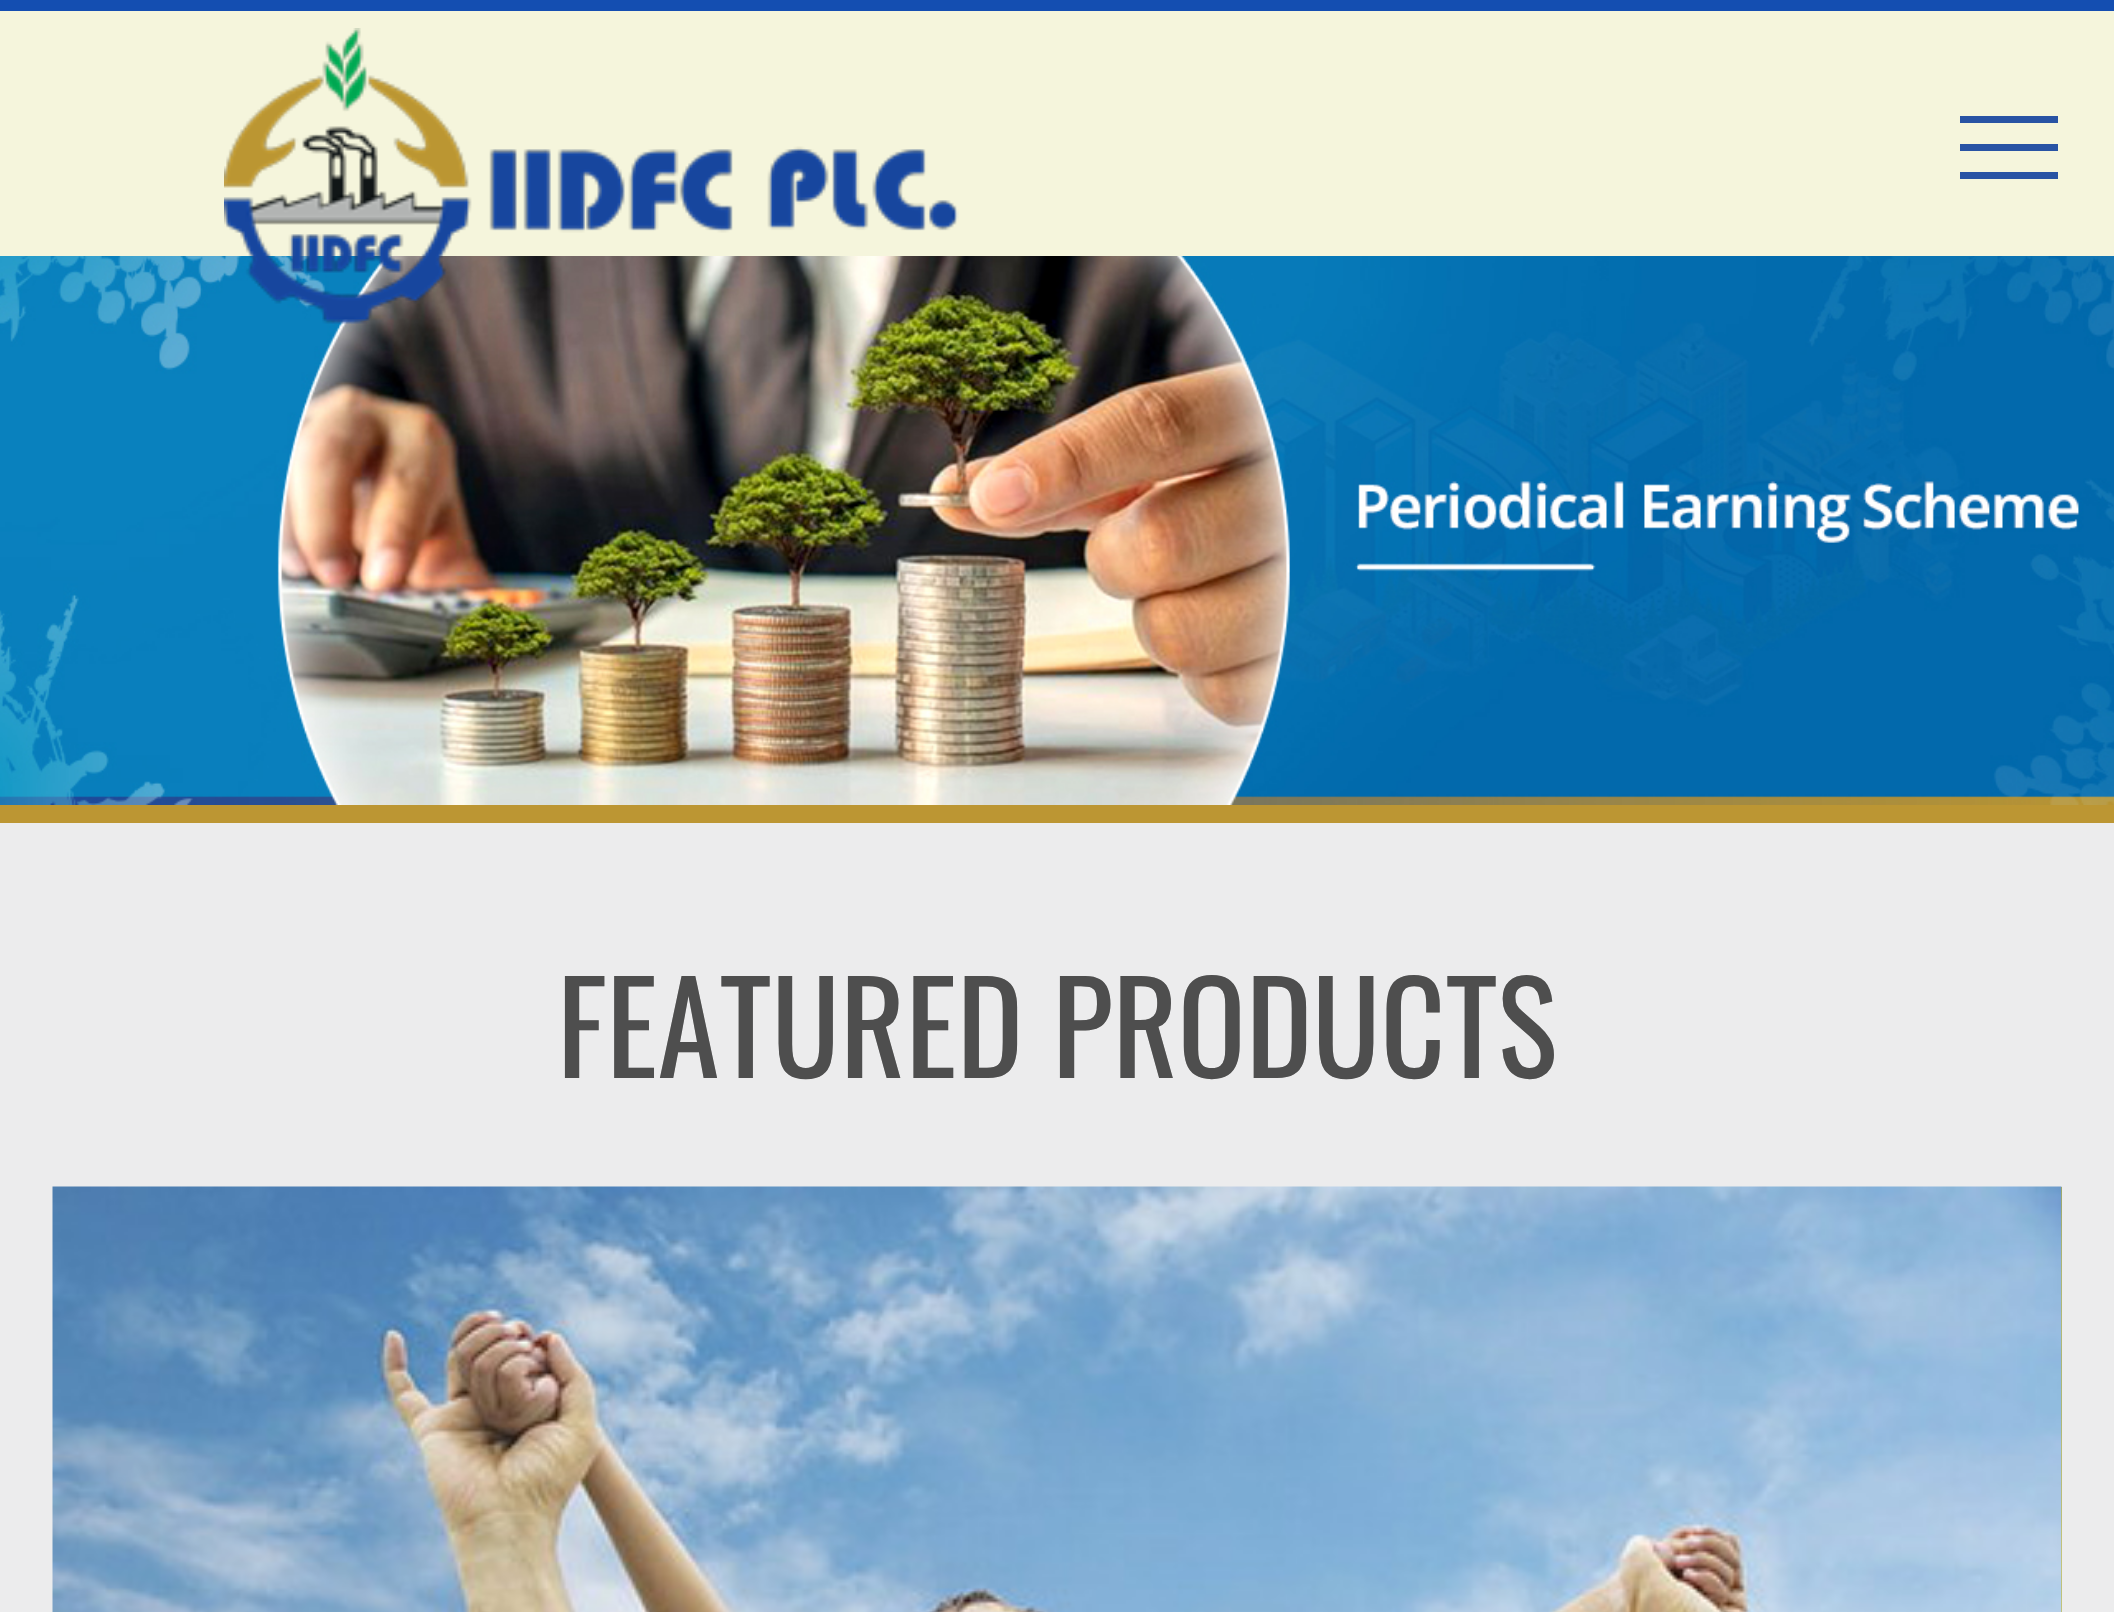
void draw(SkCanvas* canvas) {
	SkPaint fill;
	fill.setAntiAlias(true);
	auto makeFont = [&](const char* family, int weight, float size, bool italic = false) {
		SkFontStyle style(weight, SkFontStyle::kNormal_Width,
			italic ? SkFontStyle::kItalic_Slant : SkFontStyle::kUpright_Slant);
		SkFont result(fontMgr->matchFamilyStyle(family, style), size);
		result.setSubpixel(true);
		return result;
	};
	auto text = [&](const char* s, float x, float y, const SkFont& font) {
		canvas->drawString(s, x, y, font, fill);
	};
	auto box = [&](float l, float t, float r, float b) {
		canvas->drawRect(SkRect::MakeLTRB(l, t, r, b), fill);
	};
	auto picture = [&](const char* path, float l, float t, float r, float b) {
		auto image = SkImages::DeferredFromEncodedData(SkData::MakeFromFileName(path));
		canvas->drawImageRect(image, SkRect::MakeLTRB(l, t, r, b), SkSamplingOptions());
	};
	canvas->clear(0xFF144EB1);
	fill.setColor(0xFFF5F5DC);
	box(0, 11, 2114, 256);
	picture("image1.png", 0, 256, 2114, 805);
	picture("image0.png", 224, 28, 959, 324);
	fill.setColor(0xFF2853A4);
	box(1960, 116, 2058, 123);
	box(1960, 144, 2058, 151);
	box(1960, 172, 2058, 179);
	fill.setColor(0xFFECECED);
	box(0, 823, 2114, 1612);
	fill.setColor(0xFFBC9633);
	box(0, 805, 2114, 823);
	fill.setColor(0xFFCBB40E);
	box(2061, 1187, 2062, 1612);
	picture("image2.png", 52, 1186, 2062, 1612);
	auto font1 = makeFont("Oswald", 400, 126);
	fill.setColor(0xFF4E4E4E);
	text("FEATURED PRODUCTS", 557, 1078, font1);
}
